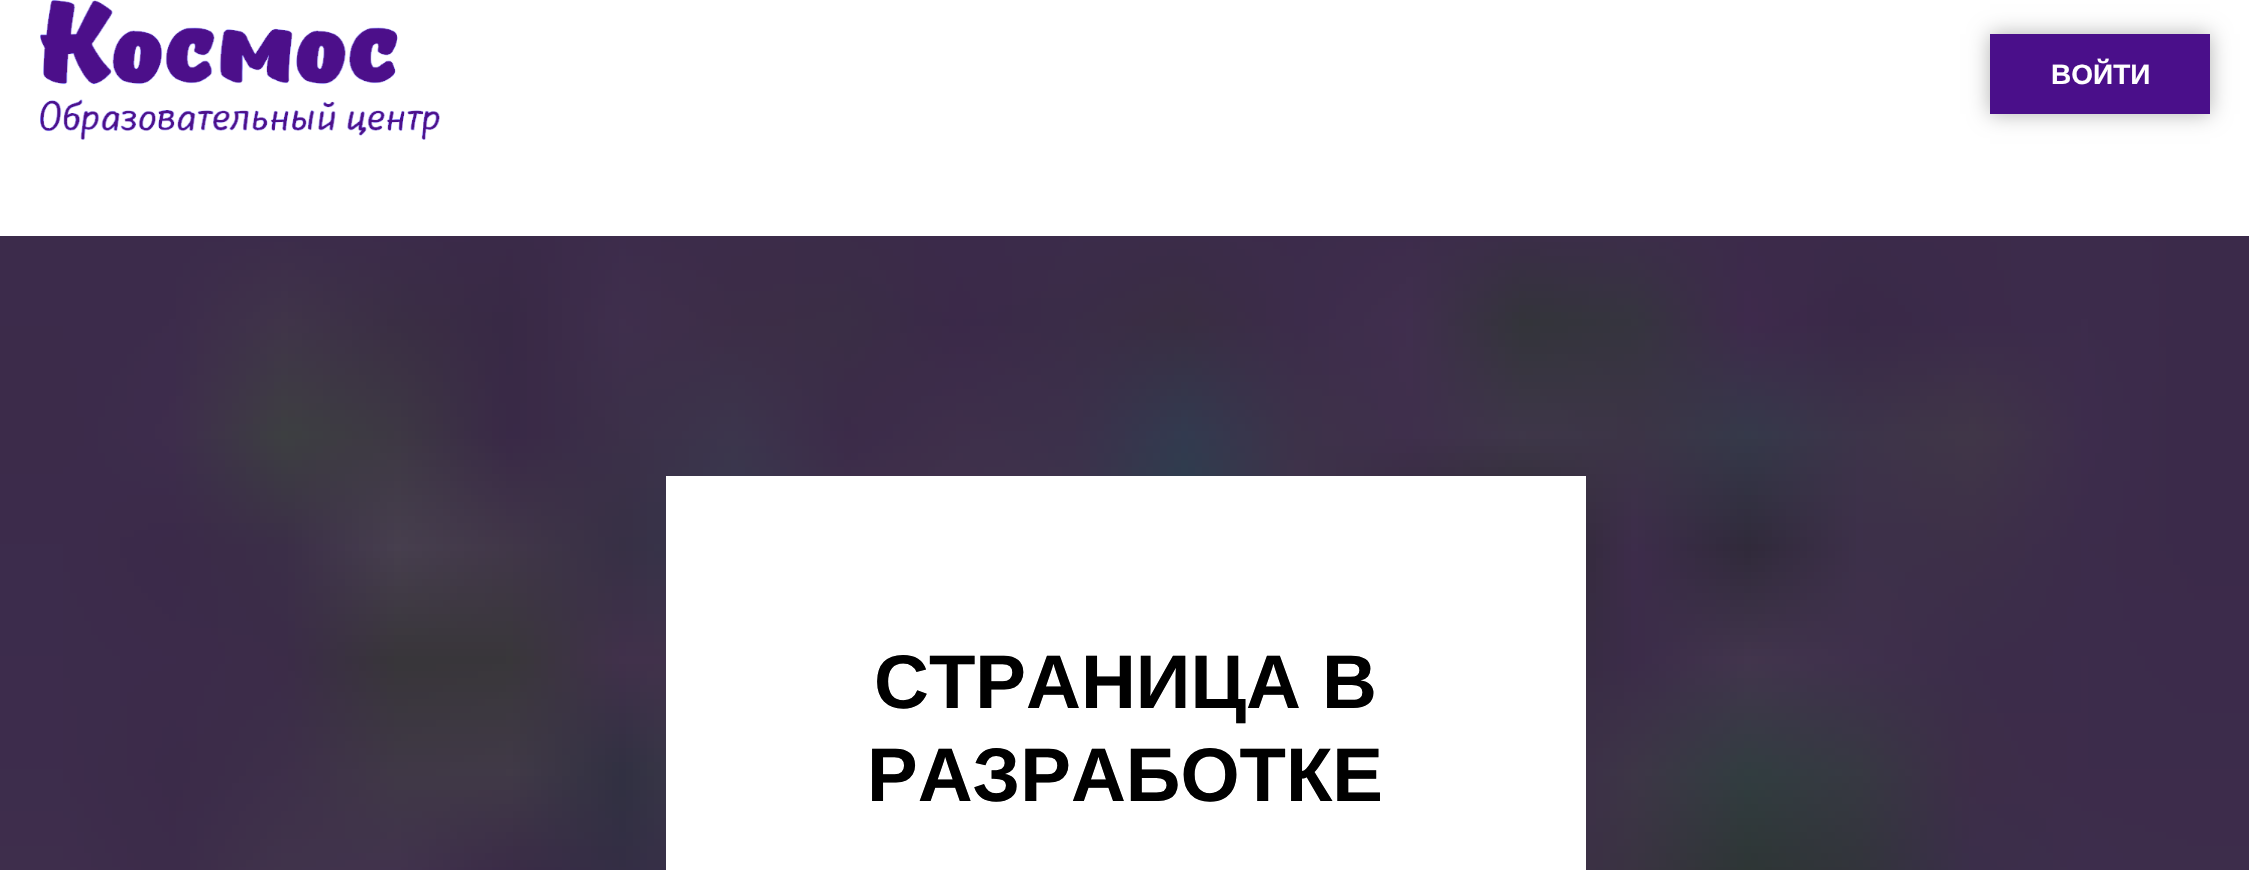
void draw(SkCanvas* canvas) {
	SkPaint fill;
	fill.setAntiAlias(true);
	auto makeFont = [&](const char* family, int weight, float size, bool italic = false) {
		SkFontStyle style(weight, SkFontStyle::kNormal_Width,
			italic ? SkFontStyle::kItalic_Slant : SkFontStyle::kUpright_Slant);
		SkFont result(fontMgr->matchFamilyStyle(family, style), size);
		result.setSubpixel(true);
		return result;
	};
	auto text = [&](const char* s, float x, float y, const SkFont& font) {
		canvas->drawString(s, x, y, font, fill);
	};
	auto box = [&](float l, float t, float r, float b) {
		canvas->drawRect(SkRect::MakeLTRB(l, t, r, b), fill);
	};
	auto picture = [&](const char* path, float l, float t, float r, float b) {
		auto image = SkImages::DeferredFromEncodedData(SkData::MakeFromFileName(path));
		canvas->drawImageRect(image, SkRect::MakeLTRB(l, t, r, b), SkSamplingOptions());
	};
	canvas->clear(0xFFFFFFFF);
	picture("image0.png", 40, 0, 440, 140);
	fill.setColor(0x4D000000);
	fill.setMaskFilter(SkMaskFilter::MakeBlur(kNormal_SkBlurStyle, 10));
	canvas->drawRect(SkRect::MakeLTRB(1990, 34, 2210, 114), fill);
	fill.setMaskFilter(nullptr);
	fill.setColor(0xFF4A0F8A);
	box(1990, 34, 2210, 114);
	picture("image1.png", 0, 236, 2249, 870);
	fill.setColor(0xFFFFFFFF);
	box(666, 476, 1586, 870);
	auto font1 = makeFont("Liberation Sans", 700, 28);
	text("ВОЙТИ", 2051, 84, font1);
	auto font2 = makeFont("Liberation Sans", 700, 76);
	fill.setColor(0xFF000000);
	text("СТРАНИЦА В", 874, 708, font2);
	text("РАЗРАБОТКЕ", 867, 801, font2);
}
